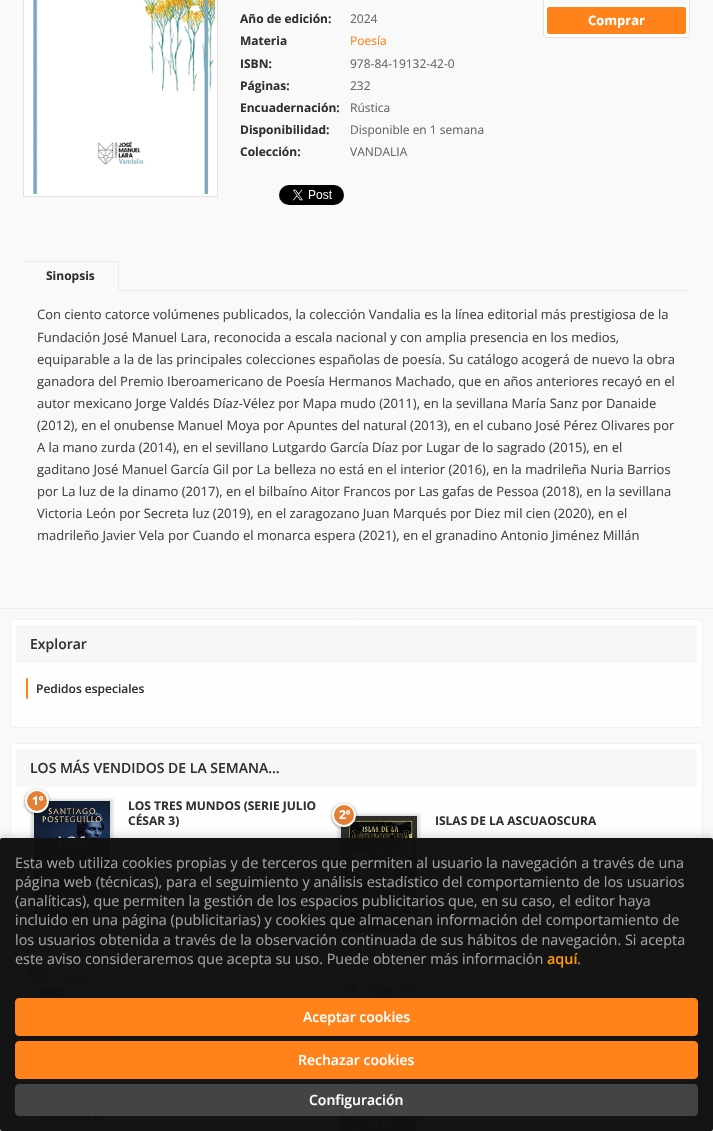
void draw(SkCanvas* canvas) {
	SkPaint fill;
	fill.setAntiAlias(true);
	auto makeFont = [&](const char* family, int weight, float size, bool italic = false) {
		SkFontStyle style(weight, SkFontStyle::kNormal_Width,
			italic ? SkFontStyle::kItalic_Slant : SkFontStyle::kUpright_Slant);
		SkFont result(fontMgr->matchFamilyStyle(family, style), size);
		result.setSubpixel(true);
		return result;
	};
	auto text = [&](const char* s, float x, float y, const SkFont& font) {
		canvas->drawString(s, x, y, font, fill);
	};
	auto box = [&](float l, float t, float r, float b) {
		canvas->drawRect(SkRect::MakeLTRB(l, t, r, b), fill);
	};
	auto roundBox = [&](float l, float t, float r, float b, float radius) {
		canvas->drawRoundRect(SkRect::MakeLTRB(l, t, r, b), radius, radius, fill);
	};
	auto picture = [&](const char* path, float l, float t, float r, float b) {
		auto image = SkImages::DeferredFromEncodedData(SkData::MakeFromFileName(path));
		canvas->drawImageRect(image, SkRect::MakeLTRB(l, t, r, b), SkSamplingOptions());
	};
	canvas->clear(0xFFF9F9F9);
	fill.setColor(0xFFFFFFFF);
	canvas->drawRect(SkRect::MakeLTRB(23.5f, -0.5f, 217.5f, 196.5f), fill);
	fill.setStyle(SkPaint::kStroke_Style);
	fill.setStrokeWidth(1);
	fill.setColor(0xFFE3E3E3);
	canvas->drawRect(SkRect::MakeLTRB(23.5f, -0.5f, 217.5f, 196.5f), fill);
	picture("image0.png", 31, 0, 215, 194);
	picture("image1.png", 279, 185, 344, 205);
	fill.setStyle(SkPaint::kFill_Style);
	fill.setColor(0xFFFFFFFF);
	canvas->drawRoundRect(SkRect::MakeLTRB(543.5f, -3.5f, 689.5f, 37.5f), 2.5f, 2.5f, fill);
	fill.setStyle(SkPaint::kStroke_Style);
	fill.setColor(0xFFE3E3E3);
	canvas->drawRoundRect(SkRect::MakeLTRB(543.5f, -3.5f, 689.5f, 37.5f), 2.5f, 2.5f, fill);
	fill.setStyle(SkPaint::kFill_Style);
	fill.setColor(0xFFF7F7F7);
	roundBox(547, -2, 686, 4, 2);
	fill.setColor(0xFFFF821B);
	canvas->drawRoundRect(SkRect::MakeLTRB(547.5f, 7.5f, 685.5f, 33.5f), 1.5f, 1.5f, fill);
	fill.setStyle(SkPaint::kStroke_Style);
	canvas->drawRoundRect(SkRect::MakeLTRB(547.5f, 7.5f, 685.5f, 33.5f), 1.5f, 1.5f, fill);
	fill.setStyle(SkPaint::kFill_Style);
	fill.setColor(0xFFEAEAEA);
	box(119, 290, 690, 291);
	box(23, 261, 119, 262);
	box(118, 261, 119, 291);
	fill.setColor(0xFFF9F9F9);
	box(118, 290, 119, 291);
	fill.setColor(0xFFEEEEEE);
	box(0, 608, 713, 609);
	fill.setColor(0xFFFEFEFE);
	canvas->drawRoundRect(SkRect::MakeLTRB(10.5f, 619.5f, 702.5f, 727.5f), 2.5f, 2.5f, fill);
	fill.setStyle(SkPaint::kStroke_Style);
	fill.setColor(0xFFF1F1F1);
	canvas->drawRoundRect(SkRect::MakeLTRB(10.5f, 619.5f, 702.5f, 727.5f), 2.5f, 2.5f, fill);
	fill.setStyle(SkPaint::kFill_Style);
	fill.setColor(0xFFF7F7F7);
	box(16, 625, 697, 663);
	fill.setColor(0xFFFF821B);
	roundBox(26, 678, 28, 699, 1);
	fill.setColor(0xFFFEFEFE);
	canvas->drawRoundRect(SkRect::MakeLTRB(10.5f, 743.5f, 702.5f, 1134.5f), 2.5f, 2.5f, fill);
	fill.setStyle(SkPaint::kStroke_Style);
	fill.setColor(0xFFF1F1F1);
	canvas->drawRoundRect(SkRect::MakeLTRB(10.5f, 743.5f, 702.5f, 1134.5f), 2.5f, 2.5f, fill);
	fill.setStyle(SkPaint::kFill_Style);
	fill.setColor(0xFFF7F7F7);
	box(16, 749, 697, 787);
	fill.setColor(0xFFE7E7E7);
	box(26, 932, 330, 933);
	fill.setColor(0x1F000000);
	fill.setMaskFilter(SkMaskFilter::MakeBlur(kNormal_SkBlurStyle, 1));
	canvas->drawRect(SkRect::MakeLTRB(31, 799, 113, 921), fill);
	fill.setMaskFilter(nullptr);
	picture("image2.png", 34, 801, 110, 917);
	fill.setColor(0x40000000);
	fill.setMaskFilter(SkMaskFilter::MakeBlur(kNormal_SkBlurStyle, 1));
	canvas->drawRoundRect(SkRect::MakeLTRB(24, 789, 50, 815), 13, 13, fill);
	fill.setMaskFilter(nullptr);
	fill.setColor(0xFFE38035);
	canvas->drawCircle(37, 801, 11, fill);
	fill.setStyle(SkPaint::kStroke_Style);
	fill.setStrokeWidth(2);
	fill.setColor(0xFFFFFFFF);
	canvas->drawCircle(37, 801, 11, fill);
	fill.setStyle(SkPaint::kFill_Style);
	fill.setColor(0xFF589FE0);
	canvas->drawOval(SkRect::MakeLTRB(88, 899, 116, 924), fill);
	fill.setStyle(SkPaint::kStroke_Style);
	fill.setColor(0xFFFFFFFF);
	canvas->drawPath(SkPathBuilder().moveTo(102, 900).cubicTo(119, 900, 119, 923, 102, 923).cubicTo(85, 923, 85, 900, 102, 900).close().detach(), fill);
	fill.setStyle(SkPaint::kFill_Style);
	fill.setColor(0xFFAFAFAF);
	box(128, 840, 168, 841);
	fill.setColor(0xFFE7E7E7);
	box(333, 947, 637, 948);
	fill.setColor(0x1F000000);
	fill.setMaskFilter(SkMaskFilter::MakeBlur(kNormal_SkBlurStyle, 1));
	canvas->drawRect(SkRect::MakeLTRB(338, 814, 420, 936), fill);
	fill.setMaskFilter(nullptr);
	picture("image3.png", 341, 816, 417, 932);
	fill.setColor(0x40000000);
	fill.setMaskFilter(SkMaskFilter::MakeBlur(kNormal_SkBlurStyle, 1));
	canvas->drawRoundRect(SkRect::MakeLTRB(331, 803, 357, 829), 13, 13, fill);
	fill.setMaskFilter(nullptr);
	fill.setColor(0xFFE38035);
	canvas->drawCircle(344, 815, 11, fill);
	fill.setStyle(SkPaint::kStroke_Style);
	fill.setColor(0xFFFFFFFF);
	canvas->drawCircle(344, 815, 11, fill);
	fill.setStyle(SkPaint::kFill_Style);
	fill.setColor(0xFF589FE0);
	canvas->drawOval(SkRect::MakeLTRB(395, 914, 423, 939), fill);
	fill.setStyle(SkPaint::kStroke_Style);
	fill.setColor(0xFFFFFFFF);
	canvas->drawPath(SkPathBuilder().moveTo(409, 915).cubicTo(426, 915, 426, 938, 409, 938).cubicTo(392, 938, 392, 915, 409, 915).close().detach(), fill);
	fill.setStyle(SkPaint::kFill_Style);
	fill.setColor(0xFFAFAFAF);
	box(435, 840, 475, 841);
	canvas->save();
	canvas->clipPath(SkPathBuilder(SkPathFillType::kEvenOdd).moveTo(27, 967).lineTo(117, 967).lineTo(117, 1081).lineTo(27, 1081).close().moveTo(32, 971).lineTo(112, 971).lineTo(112, 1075).lineTo(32, 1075).close().detach(), true);
	fill.setColor(0x1F000000);
	fill.setMaskFilter(SkMaskFilter::MakeBlur(kNormal_SkBlurStyle, 1));
	canvas->drawRect(SkRect::MakeLTRB(31, 971, 113, 1077), fill);
	fill.setMaskFilter(nullptr);
	canvas->restore();
	picture("image4.png", 34, 974, 110, 1041);
	fill.setColor(0x40000000);
	fill.setMaskFilter(SkMaskFilter::MakeBlur(kNormal_SkBlurStyle, 1));
	canvas->drawRoundRect(SkRect::MakeLTRB(24, 962, 50, 988), 13, 13, fill);
	fill.setMaskFilter(nullptr);
	fill.setColor(0xFFE38035);
	canvas->drawCircle(37, 974, 11, fill);
	fill.setStyle(SkPaint::kStroke_Style);
	fill.setColor(0xFFFFFFFF);
	canvas->drawCircle(37, 974, 11, fill);
	canvas->drawPath(SkPathBuilder().moveTo(102, 1056).cubicTo(119, 1056, 119, 1079, 102, 1079).cubicTo(85, 1079, 85, 1056, 102, 1056).close().detach(), fill);
	fill.setStyle(SkPaint::kFill_Style);
	fill.setColor(0x1F000000);
	fill.setMaskFilter(SkMaskFilter::MakeBlur(kNormal_SkBlurStyle, 1));
	canvas->drawRect(SkRect::MakeLTRB(338, 957, 420, 1079), fill);
	fill.setMaskFilter(nullptr);
	picture("image5.png", 341, 959, 417, 1041);
	fill.setColor(0x40000000);
	fill.setMaskFilter(SkMaskFilter::MakeBlur(kNormal_SkBlurStyle, 1));
	canvas->drawRoundRect(SkRect::MakeLTRB(331, 946, 357, 972), 13, 13, fill);
	fill.setMaskFilter(nullptr);
	fill.setColor(0xFFE38035);
	canvas->drawCircle(344, 958, 11, fill);
	fill.setStyle(SkPaint::kStroke_Style);
	fill.setColor(0xFFFFFFFF);
	canvas->drawCircle(344, 958, 11, fill);
	fill.setStyle(SkPaint::kFill_Style);
	fill.setColor(0xFF589FE0);
	canvas->drawOval(SkRect::MakeLTRB(395, 1057, 423, 1082), fill);
	fill.setStyle(SkPaint::kStroke_Style);
	fill.setColor(0xFFFFFFFF);
	canvas->drawPath(SkPathBuilder().moveTo(409, 1058).cubicTo(426, 1058, 426, 1081, 409, 1081).cubicTo(392, 1081, 392, 1058, 409, 1058).close().detach(), fill);
	fill.setStyle(SkPaint::kFill_Style);
	fill.setColor(0x1F000000);
	fill.setMaskFilter(SkMaskFilter::MakeBlur(kNormal_SkBlurStyle, 1));
	canvas->drawRect(SkRect::MakeLTRB(31, 1100, 113, 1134), fill);
	fill.setMaskFilter(nullptr);
	picture("image6.png", 34, 1116, 110, 1131);
	fill.setColor(0x40000000);
	fill.setMaskFilter(SkMaskFilter::MakeBlur(kNormal_SkBlurStyle, 1));
	canvas->drawRoundRect(SkRect::MakeLTRB(24, 1090, 50, 1116), 13, 13, fill);
	fill.setMaskFilter(nullptr);
	fill.setColor(0xFFAFAFAF);
	box(128, 1126, 168, 1127);
	fill.setColor(0x1F000000);
	fill.setMaskFilter(SkMaskFilter::MakeBlur(kNormal_SkBlurStyle, 1));
	canvas->drawRect(SkRect::MakeLTRB(338, 1100, 420, 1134), fill);
	fill.setMaskFilter(nullptr);
	picture("image7.png", 341, 1116, 417, 1131);
	fill.setColor(0xFFAFAFAF);
	box(435, 1126, 475, 1127);
	canvas->save();
	canvas->clipPath(SkPathBuilder(SkPathFillType::kEvenOdd).moveTo(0, 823).lineTo(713, 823).lineTo(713, 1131).lineTo(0, 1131).close().moveTo(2, 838).lineTo(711, 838).cubicTo(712, 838, 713, 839, 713, 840).lineTo(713, 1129).cubicTo(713, 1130, 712, 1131, 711, 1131).lineTo(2, 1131).cubicTo(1, 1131, 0, 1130, 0, 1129).lineTo(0, 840).cubicTo(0, 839, 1, 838, 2, 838).close().detach(), true);
	fill.setColor(0x26000000);
	fill.setMaskFilter(SkMaskFilter::MakeBlur(kNormal_SkBlurStyle, 4));
	canvas->drawRoundRect(SkRect::MakeLTRB(-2, 836, 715, 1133), 4, 4, fill);
	fill.setMaskFilter(nullptr);
	canvas->restore();
	fill.setColor(0xFA0F0F0F);
	roundBox(0, 838, 713, 1131, 2);
	fill.setColor(0xFFFF821B);
	canvas->drawRoundRect(SkRect::MakeLTRB(15.5f, 998.5f, 697.5f, 1035.5f), 3.5f, 3.5f, fill);
	fill.setStyle(SkPaint::kStroke_Style);
	fill.setStrokeWidth(1);
	canvas->drawRoundRect(SkRect::MakeLTRB(15.5f, 998.5f, 697.5f, 1035.5f), 3.5f, 3.5f, fill);
	fill.setStyle(SkPaint::kFill_Style);
	canvas->drawRoundRect(SkRect::MakeLTRB(15.5f, 1041.5f, 697.5f, 1078.5f), 3.5f, 3.5f, fill);
	fill.setStyle(SkPaint::kStroke_Style);
	canvas->drawRoundRect(SkRect::MakeLTRB(15.5f, 1041.5f, 697.5f, 1078.5f), 3.5f, 3.5f, fill);
	fill.setStyle(SkPaint::kFill_Style);
	fill.setColor(0xFF444444);
	canvas->drawRoundRect(SkRect::MakeLTRB(15.5f, 1084.5f, 697.5f, 1115.5f), 3.5f, 3.5f, fill);
	fill.setStyle(SkPaint::kStroke_Style);
	canvas->drawRoundRect(SkRect::MakeLTRB(15.5f, 1084.5f, 697.5f, 1115.5f), 3.5f, 3.5f, fill);
	auto font1 = makeFont("Open Sans", 700, 12);
	fill.setStyle(SkPaint::kFill_Style);
	fill.setColor(0xFF313131);
	text("Año de edición:", 240, 23, font1);
	auto font2 = makeFont("Open Sans", 400, 12);
	fill.setColor(0xFF666666);
	text("2024", 350, 23, font2);
	fill.setColor(0xFF313131);
	text("Materia", 240, 45, font1);
	fill.setColor(0xFFFF821B);
	text("Poesía", 350, 45, font2);
	fill.setColor(0xFF313131);
	text("ISBN:", 240, 68, font1);
	fill.setColor(0xFF666666);
	text("978-84-19132-42-0", 350, 68, font2);
	fill.setColor(0xFF313131);
	text("Páginas:", 240, 90, font1);
	fill.setColor(0xFF666666);
	text("232", 350, 90, font2);
	fill.setColor(0xFF313131);
	text("Encuadernación:", 240, 112, font1);
	fill.setColor(0xFF666666);
	text("Rústica", 350, 112, font2);
	fill.setColor(0xFF313131);
	text("Disponibilidad:", 240, 134, font1);
	fill.setColor(0xFF666666);
	text("Disponible en 1 semana", 350, 134, font2);
	fill.setColor(0xFF313131);
	text("Colección:", 240, 156, font1);
	fill.setColor(0xFF666666);
	text("VANDALIA", 350, 156, font2);
	auto font3 = makeFont("Open Sans", 700, 13);
	fill.setColor(0xFFFFFFFF);
	text("Comprar", 588, 25, font3);
	fill.setColor(0xFF313131);
	text("Sinopsis", 46, 280, font1);
	auto font4 = makeFont("Open Sans", 400, 13);
	fill.setColor(0xFF444444);
	text("Con ciento catorce volúmenes publicados, la colección Vandalia es la línea editorial más prestigiosa de la", 37, 319, font4);
	text("Fundación José Manuel Lara, reconocida a escala nacional y con amplia presencia en los medios,", 37, 342, font4);
	text("equiparable a la de las principales colecciones españolas de poesía. Su catálogo acogerá de nuevo la obra", 37, 364, font4);
	text("ganadora del Premio Iberoamericano de Poesía Hermanos Machado, que en años anteriores recayó en el", 37, 386, font4);
	text("autor mexicano Jorge Valdés Díaz-Vélez por Mapa mudo (2011), en la sevillana María Sanz por Danaide", 37, 408, font4);
	text("(2012), en el onubense Manuel Moya por Apuntes del natural (2013), en el cubano José Pérez Olivares por", 37, 430, font4);
	text("A la mano zurda (2014), en el sevillano Lutgardo García Díaz por Lugar de lo sagrado (2015), en el", 37, 452, font4);
	text("gaditano José Manuel García Gil por La belleza no está en el interior (2016), en la madrileña Nuria Barrios", 37, 474, font4);
	text("por La luz de la dinamo (2017), en el bilbaíno Aitor Francos por Las gafas de Pessoa (2018), en la sevillana", 37, 496, font4);
	text("Victoria León por Secreta luz (2019), en el zaragozano Juan Marqués por Diez mil cien (2020), en el", 37, 518, font4);
	text("madrileño Javier Vela por Cuando el monarca espera (2021), en el granadino Antonio Jiménez Millán", 37, 540, font4);
	auto font5 = makeFont("Open Sans", 600, 14);
	fill.setColor(0xFF313131);
	text("Explorar", 30, 649, font5);
	auto font6 = makeFont("Open Sans", 600, 12);
	text("Pedidos especiales", 36, 693, font6);
	text("LOS MÁS VENDIDOS DE LA SEMANA...", 30, 773, font5);
	fill.setColor(0xFFFFFFFF);
	text("1º", 32, 805, font1);
	fill.setColor(0xFF313131);
	text("LOS TRES MUNDOS (SERIE JULIO", 128, 810, font1);
	text("CÉSAR 3)", 128, 825, font1);
	fill.setColor(0xFFFFFFFF);
	text("2º", 339, 819, font1);
	fill.setColor(0xFF313131);
	text("ISLAS DE LA ASCUAOSCURA", 435, 825, font1);
	auto font7 = makeFont("Open Sans", 400, 14.4f);
	fill.setColor(0xFFA2A2A2);
	text("Esta web utiliza cookies propias y de terceros que permiten al usuario la navegación a través de una", 15, 868, font7);
	text("página web (técnicas), para el seguimiento y análisis estadístico del comportamiento de los usuarios", 15, 887, font7);
	text("(analíticas), que permiten la gestión de los espacios publicitarios que, en su caso, el editor haya", 15, 906, font7);
	text("incluido en una página (publicitarias) y cookies que almacenan información del comportamiento de", 15, 925, font7);
	text("los usuarios obtenida a través de la observación continuada de sus hábitos de navegación. Si acepta", 15, 945, font7);
	text("este aviso consideraremos que acepta su uso. Puede obtener más información", 15, 964, font7);
	auto font8 = makeFont("Open Sans", 600, 14.4f);
	fill.setColor(0xFFFF9900);
	text("aquí", 547, 964, font8);
	fill.setColor(0xFFA2A2A2);
	text(".", 577, 964, font7);
	fill.setColor(0xFFFFFFFF);
	text("Aceptar cookies", 303, 1022, font5);
	text("Rechazar cookies", 298, 1065, font5);
	text("Configuración", 309, 1105, font5);
}
